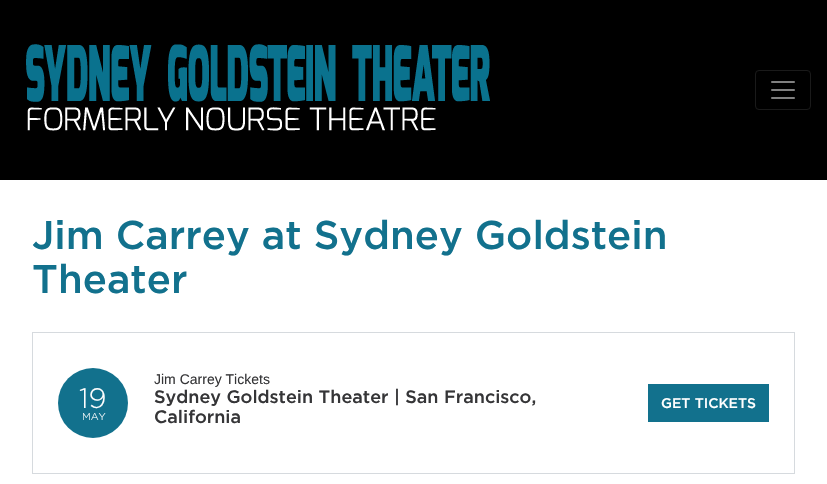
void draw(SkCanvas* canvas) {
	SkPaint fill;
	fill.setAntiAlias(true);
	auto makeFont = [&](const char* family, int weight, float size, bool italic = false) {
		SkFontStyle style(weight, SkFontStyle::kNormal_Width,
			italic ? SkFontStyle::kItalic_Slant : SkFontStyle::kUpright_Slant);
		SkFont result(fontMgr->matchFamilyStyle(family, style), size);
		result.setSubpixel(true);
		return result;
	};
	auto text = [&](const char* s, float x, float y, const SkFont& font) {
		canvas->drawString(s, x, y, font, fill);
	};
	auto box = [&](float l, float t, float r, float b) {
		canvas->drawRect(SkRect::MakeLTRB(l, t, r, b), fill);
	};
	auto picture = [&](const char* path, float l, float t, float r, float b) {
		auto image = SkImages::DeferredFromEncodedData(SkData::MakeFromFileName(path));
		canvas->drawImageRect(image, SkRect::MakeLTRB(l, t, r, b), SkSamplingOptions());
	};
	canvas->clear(0xFFFFFFFF);
	fill.setColor(0xFF000000);
	box(0, 0, 827, 180);
	picture("image0.png", 26, 44, 490, 131);
	fill.setStyle(SkPaint::kStroke_Style);
	fill.setStrokeWidth(1);
	fill.setColor(0xFF1A1A1A);
	canvas->drawRoundRect(SkRect::MakeLTRB(755.5f, 70.5f, 810.5f, 109.5f), 3.5f, 3.5f, fill);
	picture("image1.png", 771, 81, 795, 99);
	fill.setColor(0xFFD6DADE);
	canvas->drawRect(SkRect::MakeLTRB(32.5f, 332.5f, 794.5f, 473.5f), fill);
	fill.setStyle(SkPaint::kFill_Style);
	fill.setColor(0xFF12718D);
	canvas->drawCircle(93, 403, 35, fill);
	box(648, 384, 769, 422);
	auto font1 = makeFont("Gotham", 500, 40);
	text("Jim Carrey at Sydney Goldstein", 32, 249, font1);
	text("Theater", 32, 293, font1);
	auto font2 = makeFont("Gotham", 300, 28);
	fill.setColor(0xFFFFFFFF);
	text("19", 79, 408, font2);
	auto font3 = makeFont("Gotham", 300, 10);
	text("MAY", 82, 420, font3);
	auto font4 = makeFont("Liberation Sans", 400, 14);
	fill.setColor(0xFF353537);
	text("Jim Carrey Tickets", 154, 384, font4);
	auto font5 = makeFont("Gotham", 500, 18);
	text("Sydney Goldstein Theater | San Francisco,", 154, 403, font5);
	text("California", 154, 423, font5);
	auto font6 = makeFont("Gotham", 500, 14);
	fill.setColor(0xFFFFFFFF);
	text("GET TICKETS", 661, 408, font6);
}
